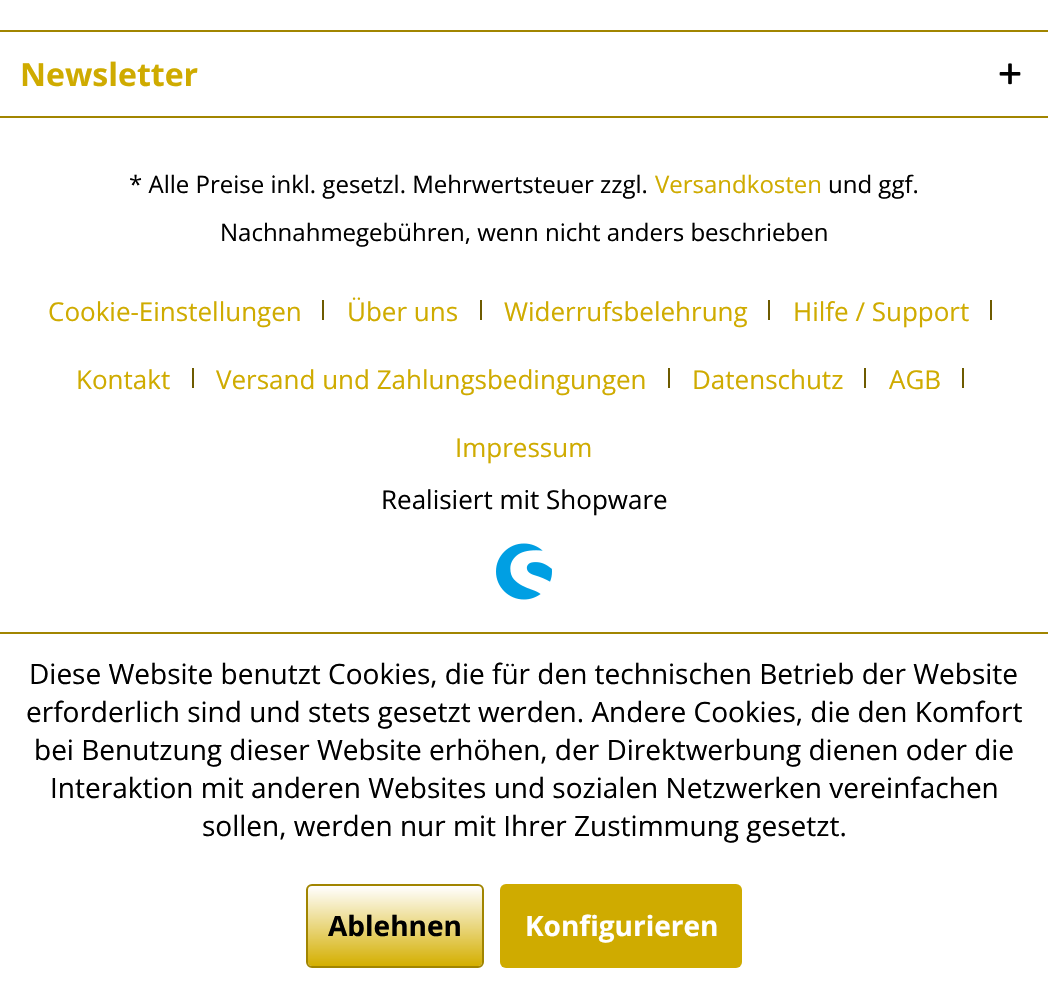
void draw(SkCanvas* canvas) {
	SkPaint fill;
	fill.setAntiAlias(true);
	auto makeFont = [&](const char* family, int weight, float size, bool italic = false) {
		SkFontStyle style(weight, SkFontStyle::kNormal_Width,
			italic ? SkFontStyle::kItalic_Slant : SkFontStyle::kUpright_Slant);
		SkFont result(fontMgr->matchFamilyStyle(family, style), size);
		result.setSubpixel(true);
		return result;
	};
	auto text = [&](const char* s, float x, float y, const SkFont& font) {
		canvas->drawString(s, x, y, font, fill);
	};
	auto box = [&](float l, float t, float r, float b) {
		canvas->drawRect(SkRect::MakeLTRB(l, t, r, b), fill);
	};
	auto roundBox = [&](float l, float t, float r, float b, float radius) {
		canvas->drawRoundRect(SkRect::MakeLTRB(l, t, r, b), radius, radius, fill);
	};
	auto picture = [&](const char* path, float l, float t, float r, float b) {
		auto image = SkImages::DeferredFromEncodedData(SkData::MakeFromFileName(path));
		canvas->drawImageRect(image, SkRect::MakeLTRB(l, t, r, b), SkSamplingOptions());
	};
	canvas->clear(0xFFFFFFFF);
	fill.setColor(0xFFA18500);
	box(0, 30, 1048, 32);
	box(0, 116, 1048, 118);
	picture("image0.png", 999, 63, 1021, 85);
	fill.setColor(0xFF6E5B00);
	box(322, 300, 324, 320);
	box(480, 300, 482, 320);
	box(768, 300, 770, 320);
	box(990, 300, 992, 320);
	box(192, 368, 194, 388);
	box(668, 368, 670, 388);
	box(864, 368, 866, 388);
	box(962, 368, 964, 388);
	picture("image1.png", 496, 543, 552, 600);
	fill.setColor(0xFFA18500);
	box(0, 632, 1048, 634);
	{
		const SkColor colors[] = {0xFFFFFFFF, 0xFFD4AF00};
		const float stops[] = {0, 1};
		const SkPoint ends[] = {{395, 886}, {395, 966}};
		fill.setShader(SkGradientShader::MakeLinear(ends, colors, stops, 2, SkTileMode::kClamp));
		fill.setAlpha(255);
	}
	roundBox(308, 886, 482, 966, 4);
	fill.setStyle(SkPaint::kStroke_Style);
	fill.setStrokeWidth(2);
	fill.setShader(nullptr);
	fill.setColor(0xFFA18500);
	canvas->drawRoundRect(SkRect::MakeLTRB(307, 885, 483, 967), 5, 5, fill);
	fill.setStyle(SkPaint::kFill_Style);
	fill.setColor(0xFFCFAB00);
	roundBox(500, 884, 742, 968, 6);
	auto font1 = makeFont("Open Sans", 700, 32);
	text("Newsletter", 20, 86, font1);
	auto font2 = makeFont("Open Sans", 400, 24);
	fill.setColor(0xFF000000);
	text("* Alle Preise inkl. gesetzl. Mehrwertsteuer zzgl.", 129, 193, font2);
	fill.setColor(0xFFCFAB00);
	text("Versandkosten", 655, 193, font2);
	fill.setColor(0xFF000000);
	text("und ggf.", 828, 193, font2);
	text("Nachnahmegebühren, wenn nicht anders beschrieben", 220, 241, font2);
	auto font3 = makeFont("Open Sans", 400, 26);
	fill.setColor(0xFFCFAB00);
	text("Cookie-Einstellungen", 48, 321, font3);
	text("Über uns", 347, 321, font3);
	text("Widerrufsbelehrung", 504, 321, font3);
	text("Hilfe / Support", 793, 321, font3);
	text("Kontakt", 76, 389, font3);
	text("Versand und Zahlungsbedingungen", 216, 389, font3);
	text("Datenschutz", 692, 389, font3);
	text("AGB", 889, 389, font3);
	text("Impressum", 455, 457, font3);
	fill.setColor(0xFF000000);
	text("Realisiert mit Shopware", 381, 509, font3);
	auto font4 = makeFont("Open Sans", 400, 28);
	text("Diese Website benutzt Cookies, die für den technischen Betrieb der Website", 29, 684, font4);
	text("erforderlich sind und stets gesetzt werden. Andere Cookies, die den Komfort", 26, 722, font4);
	text("bei Benutzung dieser Website erhöhen, der Direktwerbung dienen oder die", 34, 760, font4);
	text("Interaktion mit anderen Websites und sozialen Netzwerken vereinfachen", 50, 798, font4);
	text("sollen, werden nur mit Ihrer Zustimmung gesetzt.", 202, 836, font4);
	auto font5 = makeFont("Open Sans", 700, 28);
	text("Ablehnen", 328, 936, font5);
	fill.setColor(0xFFFFFFFF);
	text("Konfigurieren", 525, 936, font5);
}
